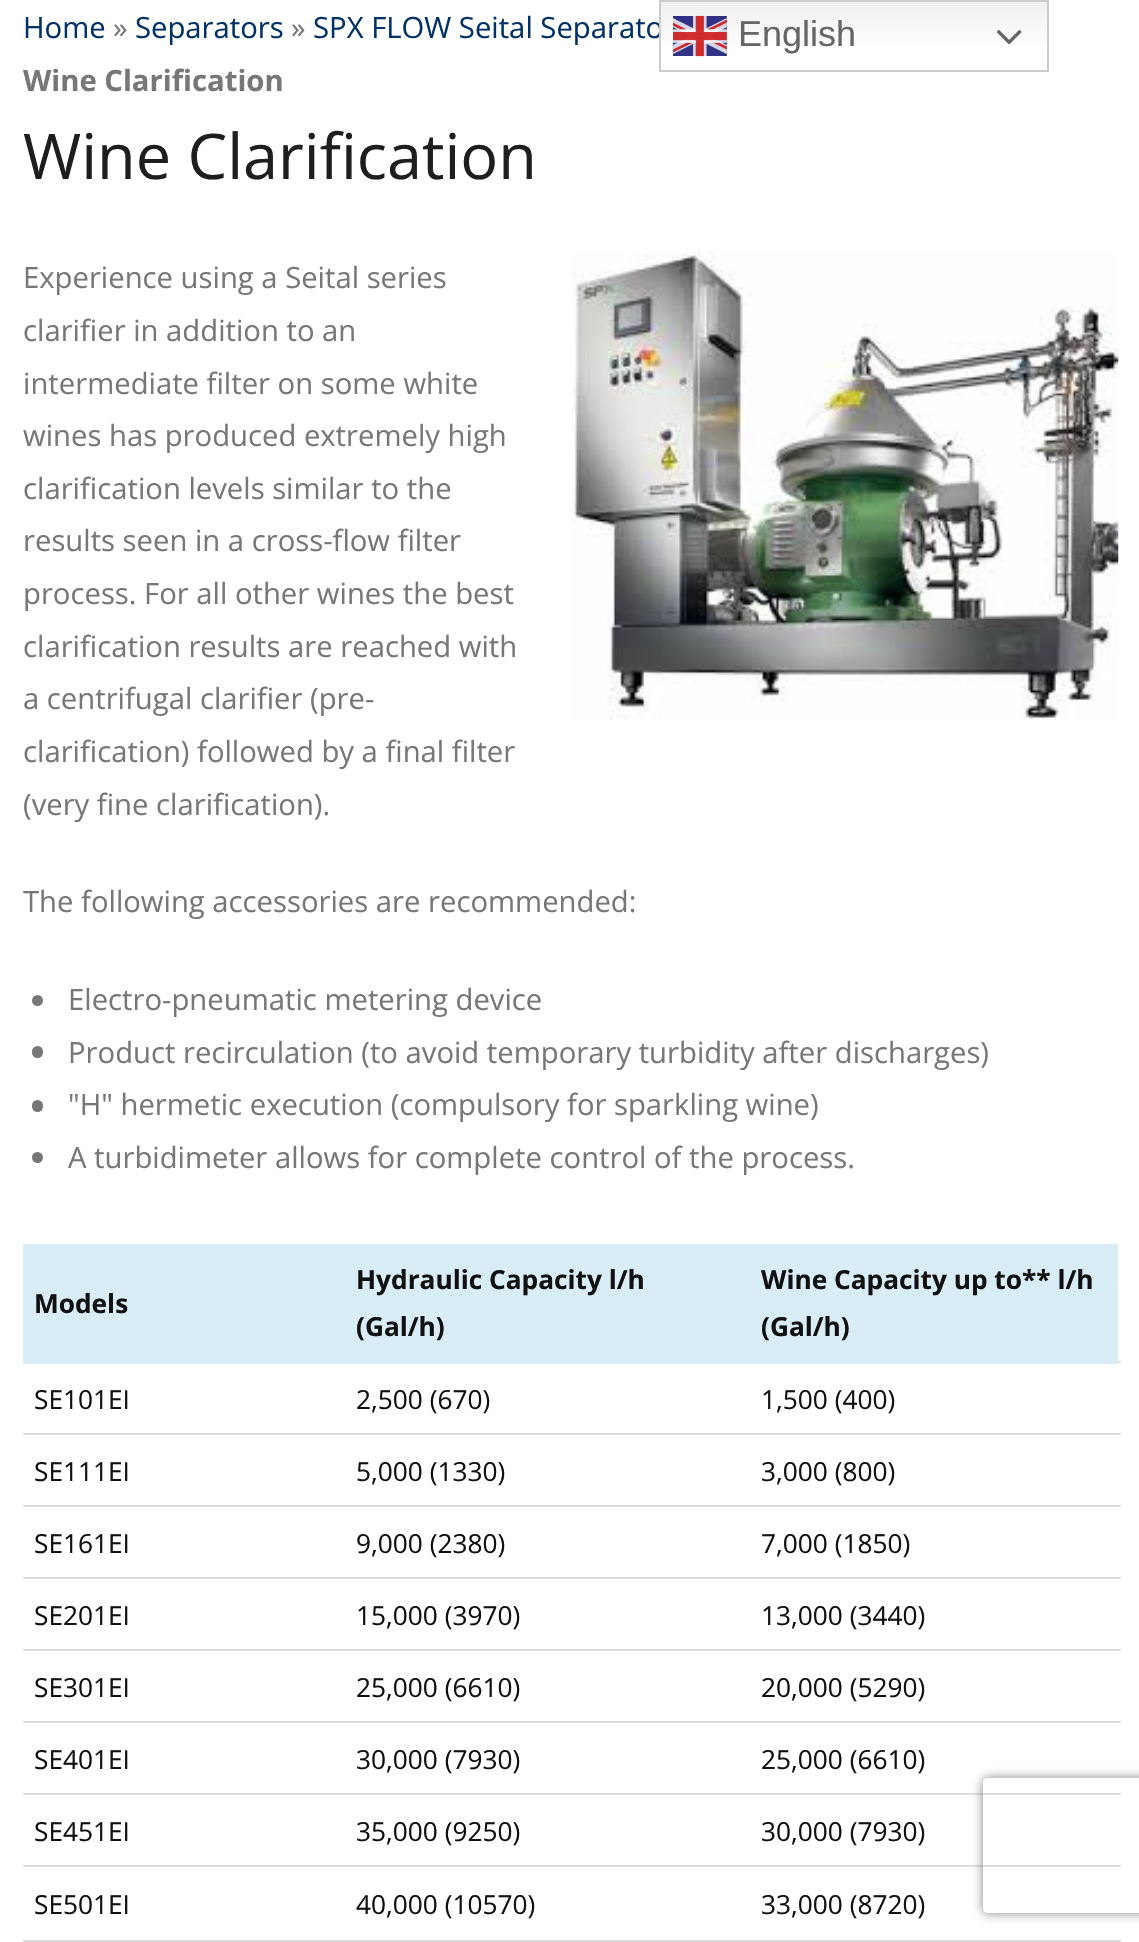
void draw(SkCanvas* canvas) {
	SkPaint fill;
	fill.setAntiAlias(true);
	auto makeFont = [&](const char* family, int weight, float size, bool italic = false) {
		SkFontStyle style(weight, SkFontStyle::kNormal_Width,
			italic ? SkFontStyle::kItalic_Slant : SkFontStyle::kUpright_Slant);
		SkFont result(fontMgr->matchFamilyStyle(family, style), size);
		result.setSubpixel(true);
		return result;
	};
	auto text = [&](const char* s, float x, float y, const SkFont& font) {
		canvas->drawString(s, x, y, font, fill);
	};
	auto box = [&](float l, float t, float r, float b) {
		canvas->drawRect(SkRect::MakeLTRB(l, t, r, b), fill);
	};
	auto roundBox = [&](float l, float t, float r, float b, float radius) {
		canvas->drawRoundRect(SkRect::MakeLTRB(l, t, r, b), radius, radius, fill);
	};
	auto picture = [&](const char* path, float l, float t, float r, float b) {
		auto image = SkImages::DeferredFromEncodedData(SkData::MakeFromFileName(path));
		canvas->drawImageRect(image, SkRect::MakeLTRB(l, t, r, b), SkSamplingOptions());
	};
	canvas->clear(0xFFFFFFFF);
	picture("image0.png", 571, 251, 1119, 720);
	fill.setColor(0xFF777777);
	canvas->drawCircle(37.5f, 1000.5f, 5.5f, fill);
	roundBox(32, 1046, 43, 1058, 5.5f);
	roundBox(32, 1100, 43, 1112, 5.5f);
	canvas->drawCircle(37.5f, 1157.5f, 5.5f, fill);
	fill.setColor(0xFFD9EDF7);
	box(23, 1244, 1118, 1364);
	fill.setColor(0xFFDDDDDD);
	box(1118, 1361, 1121, 1363);
	box(23, 1433, 1121, 1435);
	box(23, 1505, 1121, 1507);
	box(23, 1577, 1121, 1579);
	box(23, 1649, 1121, 1651);
	box(23, 1721, 1121, 1723);
	box(23, 1793, 1121, 1795);
	box(23, 1865, 1121, 1867);
	box(23, 1940, 1121, 1942);
	canvas->save();
	canvas->clipPath(SkPathBuilder(SkPathFillType::kEvenOdd).moveTo(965, 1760).lineTo(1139, 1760).lineTo(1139, 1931).lineTo(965, 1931).close().moveTo(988, 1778).lineTo(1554, 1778).cubicTo(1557, 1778, 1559, 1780, 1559, 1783).lineTo(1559, 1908).cubicTo(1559, 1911, 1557, 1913, 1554, 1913).lineTo(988, 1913).cubicTo(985, 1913, 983, 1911, 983, 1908).lineTo(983, 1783).cubicTo(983, 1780, 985, 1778, 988, 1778).close().detach(), true);
	fill.setColor(0xFF808080);
	fill.setMaskFilter(SkMaskFilter::MakeBlur(kNormal_SkBlurStyle, 5.5f));
	canvas->drawRoundRect(SkRect::MakeLTRB(983, 1778, 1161, 1913), 5, 5, fill);
	fill.setMaskFilter(nullptr);
	canvas->restore();
	auto font1 = makeFont("Open Sans", 400, 29.25f);
	fill.setColor(0xFF003267);
	text("Home", 23, 38, font1);
	fill.setColor(0xFF777777);
	text("»", 113, 38, font1);
	fill.setColor(0xFF003267);
	text("Separators", 135, 38, font1);
	fill.setColor(0xFF777777);
	text("»", 291, 38, font1);
	fill.setColor(0xFF003267);
	text("SPX FLOW Seital Separato", 313, 38, font1);
	auto font2 = makeFont("Open Sans", 700, 29.25f);
	fill.setColor(0xFF777777);
	text("Wine Clarification", 23, 91, font2);
	auto font3 = makeFont("Open Sans", 400, 63);
	fill.setColor(0xFF1E1E1E);
	text("Wine Clarification", 23, 179, font3);
	fill.setColor(0xFF777777);
	text("Experience using a Seital series", 23, 288, font1);
	text("clarifier in addition to an", 23, 341, font1);
	text("intermediate filter on some white", 23, 394, font1);
	text("wines has produced extremely high", 23, 446, font1);
	text("clarification levels similar to the", 23, 499, font1);
	text("results seen in a cross-flow filter", 23, 551, font1);
	text("process. For all other wines the best", 23, 604, font1);
	text("clarification results are reached with", 23, 657, font1);
	text("a centrifugal clarifier (pre-", 23, 709, font1);
	text("clarification) followed by a final filter", 23, 762, font1);
	text("(very fine clarification).", 23, 815, font1);
	text("The following accessories are recommended:", 23, 912, font1);
	text("Electro-pneumatic metering device", 68, 1010, font1);
	text("Product recirculation (to avoid temporary turbidity after discharges)", 68, 1063, font1);
	text("\"H\" hermetic execution (compulsory for sparkling wine)", 68, 1115, font1);
	text("A turbidimeter allows for complete control of the process.", 68, 1168, font1);
	auto font4 = makeFont("Open Sans", 700, 26.25f);
	fill.setColor(0xFF111111);
	text("Models", 34, 1313, font4);
	text("Hydraulic Capacity l/h", 356, 1289, font4);
	text("(Gal/h)", 356, 1336, font4);
	text("Wine Capacity up to** l/h", 761, 1289, font4);
	text("(Gal/h)", 761, 1336, font4);
	auto font5 = makeFont("Open Sans", 400, 26.25f);
	text("SE101EI", 34, 1409, font5);
	text("2,500 (670)", 356, 1409, font5);
	text("1,500 (400)", 761, 1409, font5);
	text("SE111EI", 34, 1481, font5);
	text("5,000 (1330)", 356, 1481, font5);
	text("3,000 (800)", 761, 1481, font5);
	text("SE161EI", 34, 1553, font5);
	text("9,000 (2380)", 356, 1553, font5);
	text("7,000 (1850)", 761, 1553, font5);
	text("SE201EI", 34, 1625, font5);
	text("15,000 (3970)", 356, 1625, font5);
	text("13,000 (3440)", 761, 1625, font5);
	text("SE301EI", 34, 1697, font5);
	text("25,000 (6610)", 356, 1697, font5);
	text("20,000 (5290)", 761, 1697, font5);
	text("SE401EI", 34, 1769, font5);
	text("30,000 (7930)", 356, 1769, font5);
	text("25,000 (6610)", 761, 1769, font5);
	text("SE451EI", 34, 1841, font5);
	text("35,000 (9250)", 356, 1841, font5);
	text("30,000 (7930)", 761, 1841, font5);
	text("SE501EI", 34, 1914, font5);
	text("40,000 (10570)", 356, 1914, font5);
	text("33,000 (8720)", 761, 1914, font5);
	{
		const SkColor colors[] = {0xFFEFEFEF, 0xFFFFFFFF};
		const float stops[] = {0, 0.7f};
		const SkPoint ends[] = {{854, 0}, {854, 72}};
		fill.setShader(SkGradientShader::MakeLinear(ends, colors, stops, 2, SkTileMode::kClamp));
		fill.setAlpha(255);
	}
	box(661, 2, 1047, 43);
	fill.setStyle(SkPaint::kStroke_Style);
	fill.setStrokeWidth(2);
	fill.setShader(nullptr);
	fill.setColor(0xFFCCCCCC);
	canvas->drawRect(SkRect::MakeLTRB(660, 1, 1048, 71), fill);
	picture("image1.png", 673, 15, 727, 57);
	auto font6 = makeFont("Liberation Sans", 400, 36);
	fill.setStyle(SkPaint::kFill_Style);
	fill.setColor(0xFF666666);
	text("English", 738, 46, font6);
	picture("image2.png", 997, 30, 1022, 45);
}
